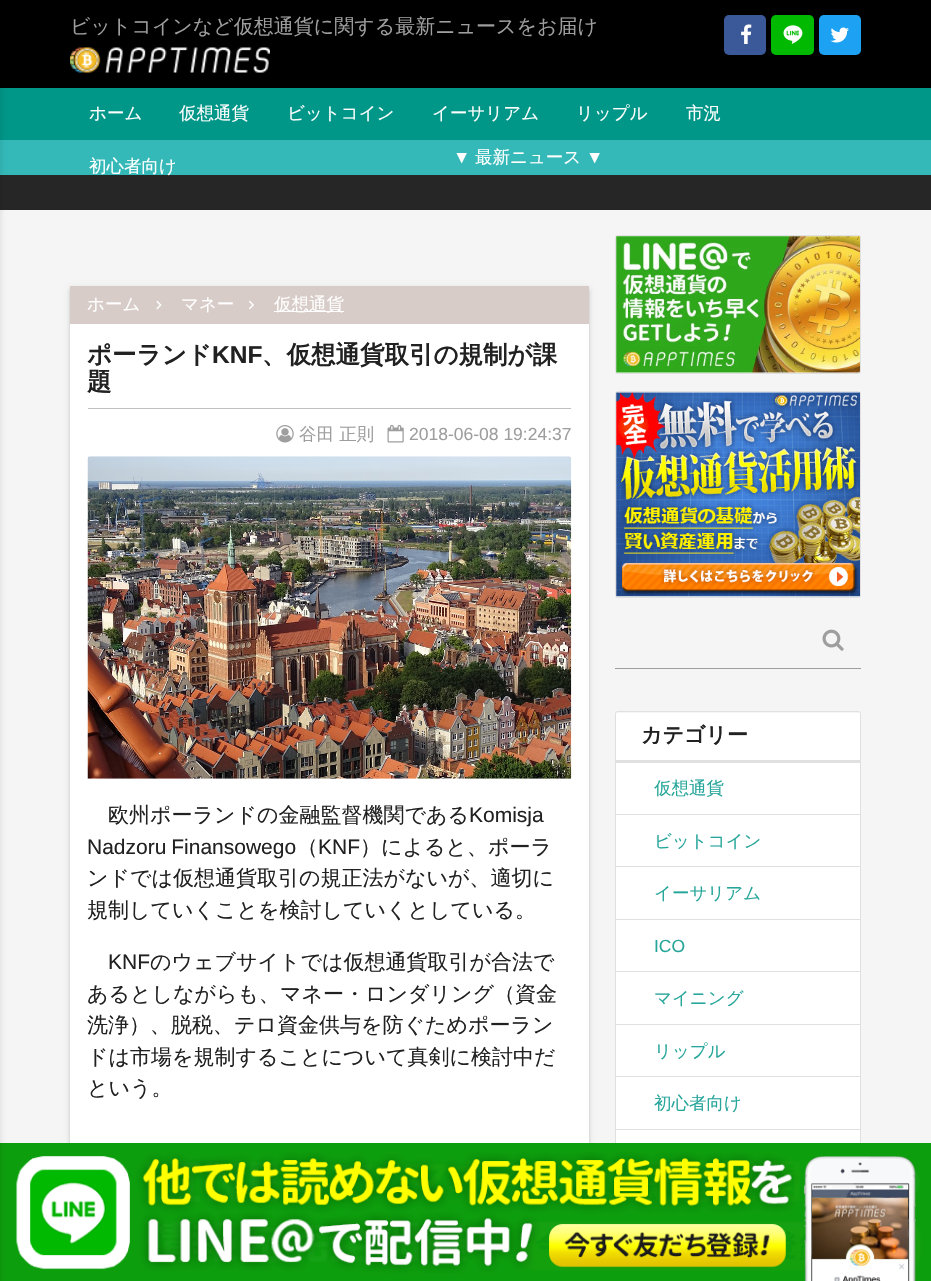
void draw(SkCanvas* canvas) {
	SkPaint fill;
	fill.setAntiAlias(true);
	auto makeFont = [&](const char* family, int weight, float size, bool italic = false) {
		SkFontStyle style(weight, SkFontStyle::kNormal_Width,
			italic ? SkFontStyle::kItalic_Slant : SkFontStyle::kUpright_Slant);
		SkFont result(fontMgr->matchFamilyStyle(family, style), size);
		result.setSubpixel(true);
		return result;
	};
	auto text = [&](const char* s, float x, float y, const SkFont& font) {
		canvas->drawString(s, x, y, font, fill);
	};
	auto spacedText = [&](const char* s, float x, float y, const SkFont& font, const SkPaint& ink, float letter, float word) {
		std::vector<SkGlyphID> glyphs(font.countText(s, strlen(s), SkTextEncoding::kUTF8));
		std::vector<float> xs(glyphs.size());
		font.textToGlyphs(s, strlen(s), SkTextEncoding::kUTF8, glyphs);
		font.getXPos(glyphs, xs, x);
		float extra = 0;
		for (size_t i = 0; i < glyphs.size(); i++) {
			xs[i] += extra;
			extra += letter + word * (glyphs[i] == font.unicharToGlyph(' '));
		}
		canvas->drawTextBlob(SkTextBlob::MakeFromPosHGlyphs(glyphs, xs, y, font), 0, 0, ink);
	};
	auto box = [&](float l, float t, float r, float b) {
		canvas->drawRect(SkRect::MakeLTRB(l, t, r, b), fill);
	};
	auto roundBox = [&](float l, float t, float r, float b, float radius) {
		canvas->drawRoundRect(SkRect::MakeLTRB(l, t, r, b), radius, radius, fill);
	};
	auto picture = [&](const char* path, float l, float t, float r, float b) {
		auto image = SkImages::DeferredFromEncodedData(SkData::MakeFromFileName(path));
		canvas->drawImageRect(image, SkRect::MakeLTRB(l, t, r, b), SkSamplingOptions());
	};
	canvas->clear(0xFFF5F5F5);
	fill.setColor(0xFF000000);
	box(0, 0, 931, 88);
	fill.setColor(0xFF009688);
	box(0, 88, 931, 140);
	fill.setColor(0xFF34B8B8);
	box(0, 140, 931, 175);
	fill.setColor(0xFF262626);
	box(0, 175, 931, 210);
	fill.setColor(0x1F000000);
	fill.setMaskFilter(SkMaskFilter::MakeBlur(kNormal_SkBlurStyle, 3));
	canvas->drawRect(SkRect::MakeLTRB(70, 288, 589, 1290), fill);
	fill.setMaskFilter(nullptr);
	fill.setColor(0x24000000);
	fill.setMaskFilter(SkMaskFilter::MakeBlur(kNormal_SkBlurStyle, 1));
	canvas->drawRect(SkRect::MakeLTRB(70, 289, 589, 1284), fill);
	fill.setMaskFilter(nullptr);
	fill.setStyle(SkPaint::kStroke_Style);
	fill.setStrokeWidth(1);
	fill.setColor(0xFFE0E0E0);
	canvas->drawRoundRect(SkRect::MakeLTRB(615.5f, 711.5f, 860.5f, 1182.5f), 2, 2, fill);
	picture("image12.png", 0, 1143, 931, 1281);
	fill.setStyle(SkPaint::kFill_Style);
	fill.setColor(0x1F000000);
	fill.setMaskFilter(SkMaskFilter::MakeBlur(kNormal_SkBlurStyle, 3));
	canvas->drawRect(SkRect::MakeLTRB(-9, 1, 0, 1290), fill);
	fill.setMaskFilter(nullptr);
	picture("image0.png", 70, 47, 270, 73);
	fill.setColor(0xFF3B5998);
	roundBox(724, 15, 766, 55, 5);
	picture("image1.png", 741, 24, 752, 44);
	fill.setColor(0xFF00B900);
	roundBox(771, 15, 814, 55, 5);
	picture("image2.png", 783, 25, 803, 44);
	fill.setColor(0xFF1DA1F2);
	roundBox(819, 15, 861, 55, 5);
	picture("image3.png", 830, 27, 849, 43);
	fill.setColor(0xFFD7CCC8);
	box(70, 286, 589, 324);
	picture("image4.png", 156, 300, 162, 310);
	picture("image5.png", 249, 300, 254, 310);
	fill.setColor(0xFFFFFFFF);
	box(274, 311, 344, 312);
	box(70, 324, 589, 1143);
	fill.setColor(0xFFC0C0C0);
	box(88, 408, 571, 409);
	picture("image6.png", 276, 425, 294, 443);
	picture("image7.png", 387, 425, 404, 443);
	picture("image8.png", 87, 456, 572, 779);
	fill.setColor(0xFFFFFFFF);
	canvas->drawRoundRect(SkRect::MakeLTRB(615.5f, 235.5f, 860.5f, 373.5f), 2, 2, fill);
	fill.setStyle(SkPaint::kStroke_Style);
	fill.setColor(0xFFE0E0E0);
	canvas->drawRoundRect(SkRect::MakeLTRB(615.5f, 235.5f, 860.5f, 373.5f), 2, 2, fill);
	picture("image9.png", 616, 236, 860, 373);
	fill.setStyle(SkPaint::kFill_Style);
	fill.setColor(0xFFFFFFFF);
	canvas->drawRoundRect(SkRect::MakeLTRB(615.5f, 391.5f, 860.5f, 597.5f), 2, 2, fill);
	fill.setStyle(SkPaint::kStroke_Style);
	fill.setColor(0xFFE0E0E0);
	canvas->drawRoundRect(SkRect::MakeLTRB(615.5f, 391.5f, 860.5f, 597.5f), 2, 2, fill);
	picture("image10.png", 616, 392, 860, 597);
	picture("image11.png", 822, 629, 844, 651);
	fill.setStyle(SkPaint::kFill_Style);
	fill.setColor(0xFF9E9E9E);
	box(615, 668, 861, 669);
	fill.setColor(0xFFFFFFFF);
	canvas->drawPath(SkPathBuilder().moveTo(617, 713).lineTo(859, 713).cubicTo(859.5f, 713, 860, 713.5f, 860, 714).lineTo(860, 763).lineTo(616, 763).lineTo(616, 714).cubicTo(616, 713.5f, 616.5f, 713, 617, 713).close().detach(), fill);
	fill.setColor(0xFFE0E0E0);
	box(616, 760, 860, 763);
	fill.setColor(0xFFFFFFFF);
	box(616, 763, 860, 814);
	fill.setColor(0xFFE0E0E0);
	box(616, 814, 860, 815);
	fill.setColor(0xFFFFFFFF);
	box(616, 815, 860, 919);
	fill.setColor(0xFFE0E0E0);
	box(616, 866, 860, 867);
	box(616, 919, 860, 920);
	fill.setColor(0xFFFFFFFF);
	box(616, 920, 860, 1024);
	fill.setColor(0xFFE0E0E0);
	box(616, 971, 860, 972);
	box(616, 1024, 860, 1025);
	fill.setColor(0xFFFFFFFF);
	box(616, 1025, 860, 1129);
	fill.setColor(0xFFE0E0E0);
	box(616, 1076, 860, 1077);
	box(616, 1129, 860, 1130);
	fill.setColor(0xFFFFFFFF);
	box(616, 1130, 860, 1143);
	auto font1 = makeFont("WenQuanYi Zen Hei", 500, 20);
	fill.setColor(0xFF9E9E9E);
	text("ビットコインなど仮想通貨に関する最新ニュースをお届け", 70, 33, font1);
	auto font2 = makeFont("WenQuanYi Zen Hei", 500, 17.5f);
	fill.setColor(0xFFFFFFFF);
	text("ホーム", 89, 119, font2);
	text("仮想通貨", 179, 119, font2);
	text("ビットコイン", 287, 119, font2);
	text("イーサリアム", 432, 119, font2);
	text("リップル", 576, 119, font2);
	text("市況", 686, 119, font2);
	text("初心者向け", 89, 172, font2);
	auto font3 = makeFont("Liberation Sans", 400, 17.5f);
	text("▼", 453, 163, font3);
	text("最新ニュース", 475, 163, font2);
	text("▼", 586, 163, font3);
	text("ホーム", 87, 310, font2);
	text("マネー", 181, 310, font2);
	text("仮想通貨", 274, 310, font2);
	auto font4 = makeFont("WenQuanYi Zen Hei", 700, 24.5f);
	fill.setColor(0xFF212121);
	text("ポーランド", 87, 363, font4);
	auto font5 = makeFont("Liberation Sans", 700, 24.5f);
	text("KNF", 212, 363, font5);
	text("、仮想通貨取引の規制が課", 262, 363, font4);
	text("題", 87, 390, font4);
	fill.setColor(0xFF9E9E9E);
	text("谷田 正則", 299, 440, font2);
	text("2018-06-08 19:24:37", 409, 440, font3);
	auto font6 = makeFont("WenQuanYi Zen Hei", 500, 21);
	fill.setColor(0xFF212121);
	text("欧州ポーランドの金融監督機関である", 108, 822, font6);
	auto font7 = makeFont("Liberation Sans", 400, 21);
	text("Komisja", 469, 822, font7);
	spacedText("Nadzoru Finansowego", 87, 854, font7, fill, 0, -1);
	text("（", 297, 854, font6);
	text("KNF", 318, 854, font7);
	text("）によると、ポーラ", 360, 854, font6);
	text("ンドでは仮想通貨取引の規正法がないが、適切に", 87, 885, font6);
	text("規制していくことを検討していくとしている。", 87, 917, font6);
	text("KNF", 108, 969, font7);
	text("のウェブサイトでは仮想通貨取引が合法で", 150, 969, font6);
	text("あるとしながらも、マネー・ロンダリング（資金", 87, 1001, font6);
	text("洗浄）、脱税、テロ資金供与を防ぐためポーラン", 87, 1032, font6);
	text("ドは市場を規制することについて真剣に検討中だ", 87, 1064, font6);
	text("という。", 87, 1095, font6);
	auto font8 = makeFont("WenQuanYi Zen Hei", 700, 21);
	text("カテゴリー", 641, 742, font8);
	fill.setColor(0xFF26A69A);
	text("仮想通貨", 654, 794, font2);
	text("ビットコイン", 654, 847, font2);
	text("イーサリアム", 654, 899, font2);
	text("ICO", 654, 952, font3);
	text("マイニング", 654, 1004, font2);
	text("リップル", 654, 1057, font2);
	text("初心者向け", 654, 1109, font2);
}
